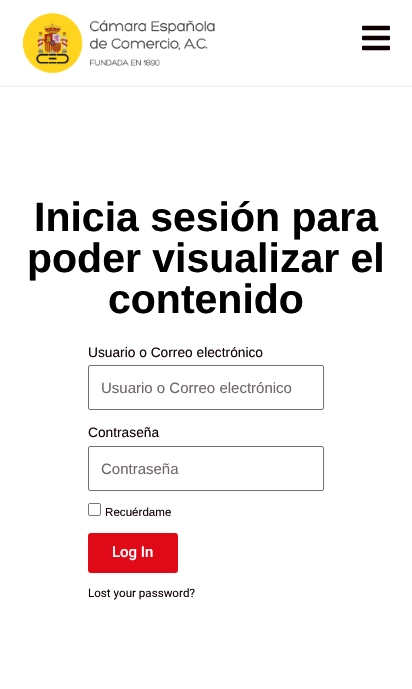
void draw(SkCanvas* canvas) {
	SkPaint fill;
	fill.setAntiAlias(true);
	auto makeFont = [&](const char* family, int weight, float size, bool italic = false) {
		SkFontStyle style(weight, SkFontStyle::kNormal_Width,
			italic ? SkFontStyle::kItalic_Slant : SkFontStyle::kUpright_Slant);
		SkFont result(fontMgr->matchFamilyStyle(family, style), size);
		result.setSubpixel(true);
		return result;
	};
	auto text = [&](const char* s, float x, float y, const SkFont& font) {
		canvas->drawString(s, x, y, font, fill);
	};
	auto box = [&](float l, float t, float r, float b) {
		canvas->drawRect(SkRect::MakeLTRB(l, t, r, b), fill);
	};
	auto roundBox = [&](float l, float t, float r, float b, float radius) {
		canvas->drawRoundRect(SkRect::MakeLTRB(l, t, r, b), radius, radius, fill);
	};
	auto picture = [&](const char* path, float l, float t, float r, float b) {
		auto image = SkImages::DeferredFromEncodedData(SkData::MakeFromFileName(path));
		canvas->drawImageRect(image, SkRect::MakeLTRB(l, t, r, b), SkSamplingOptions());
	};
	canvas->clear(0xFFFFFFFF);
	fill.setColor(0xFFF4F4F4);
	box(0, 85, 412, 87);
	picture("image0.png", 22, 13, 215, 74);
	picture("image1.png", 362, 25, 390, 51);
	fill.setStyle(SkPaint::kStroke_Style);
	fill.setStrokeWidth(1);
	fill.setColor(0xFF69727D);
	canvas->drawRoundRect(SkRect::MakeLTRB(88.5f, 365.5f, 323.5f, 409.5f), 1.5f, 1.5f, fill);
	canvas->drawRoundRect(SkRect::MakeLTRB(88.5f, 446.5f, 323.5f, 490.5f), 1.5f, 1.5f, fill);
	fill.setColor(0xFF767676);
	canvas->drawRoundRect(SkRect::MakeLTRB(88.5f, 503.5f, 100.5f, 515.5f), 1.5f, 1.5f, fill);
	fill.setStyle(SkPaint::kFill_Style);
	fill.setColor(0xFFE00918);
	roundBox(88, 533, 178, 573, 3);
	auto font1 = makeFont("Liberation Sans", 700, 41);
	fill.setColor(0xFF000000);
	text("Inicia sesión para", 34, 231, font1);
	text("poder visualizar el", 27, 272, font1);
	text("contenido", 108, 313, font1);
	auto font2 = makeFont("Liberation Sans", 400, 13.75f);
	fill.setColor(0xFF120303);
	text("Usuario o Correo electrónico", 88, 357, font2);
	auto font3 = makeFont("Liberation Sans", 400, 15);
	fill.setColor(0xFF716868);
	text("Usuario o Correo electrónico", 101, 393, font3);
	fill.setColor(0xFF120303);
	text("Contraseña", 88, 437, font2);
	fill.setColor(0xFF716868);
	text("Contraseña", 101, 474, font3);
	auto font4 = makeFont("Liberation Sans", 400, 11.6f);
	fill.setColor(0xFF120303);
	text("Recuérdame", 105, 516, font4);
	auto font5 = makeFont("Roboto", 500, 15);
	fill.setColor(0xFFFFFFFF);
	text("Log In", 112, 557, font5);
	auto font6 = makeFont("Roboto", 400, 11.6f);
	fill.setColor(0xFF120303);
	text("Lost your password?", 88, 597, font6);
}
